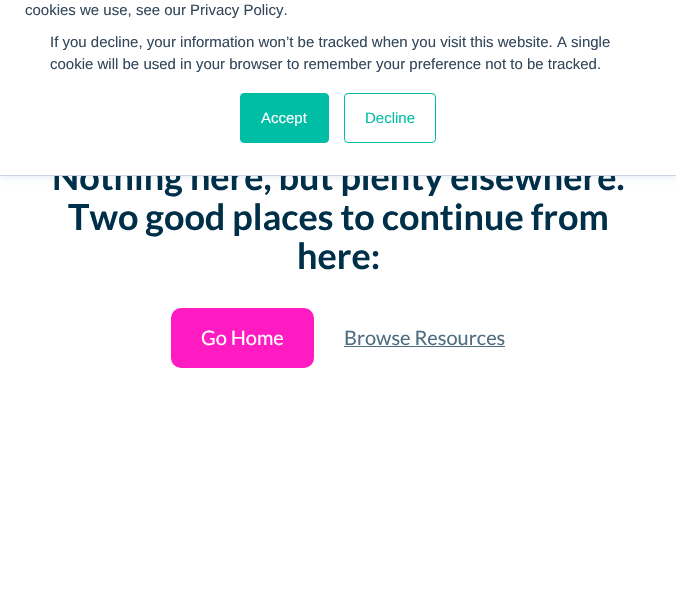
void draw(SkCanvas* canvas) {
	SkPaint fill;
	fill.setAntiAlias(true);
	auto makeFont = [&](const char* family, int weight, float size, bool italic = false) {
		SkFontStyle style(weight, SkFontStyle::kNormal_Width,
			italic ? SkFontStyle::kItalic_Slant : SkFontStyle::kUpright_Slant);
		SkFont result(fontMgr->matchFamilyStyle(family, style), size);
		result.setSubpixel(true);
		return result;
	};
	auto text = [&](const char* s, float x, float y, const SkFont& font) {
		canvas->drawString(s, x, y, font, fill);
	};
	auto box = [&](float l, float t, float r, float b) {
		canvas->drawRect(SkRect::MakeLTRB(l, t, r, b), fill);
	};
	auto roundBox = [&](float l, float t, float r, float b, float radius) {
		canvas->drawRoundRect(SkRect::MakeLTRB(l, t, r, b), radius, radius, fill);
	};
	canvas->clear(0xFFFFFFFF);
	fill.setColor(0xFFEAF0F6);
	fill.setMaskFilter(SkMaskFilter::MakeBlur(kNormal_SkBlurStyle, 3));
	canvas->drawRect(SkRect::MakeLTRB(0, -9, 676, 178), fill);
	fill.setMaskFilter(nullptr);
	fill.setColor(0xFFFF1BC2);
	roundBox(171, 308, 314, 368, 10);
	fill.setColor(0xFF4D6E80);
	box(344, 346, 505, 347);
	auto font1 = makeFont("Lato", 700, 36);
	fill.setColor(0xFF003049);
	text("Nothing here, but plenty elsewhere.", 52, 190, font1);
	fill.setColor(0xFFFFFFFF);
	box(0, 0, 676, 175);
	fill.setStyle(SkPaint::kStroke_Style);
	fill.setStrokeWidth(1);
	fill.setColor(0xFF00BDA5);
	canvas->drawRoundRect(SkRect::MakeLTRB(344.5f, 93.5f, 435.5f, 142.5f), 3.5f, 3.5f, fill);
	auto font2 = makeFont("Liberation Sans", 400, 15);
	fill.setStyle(SkPaint::kFill_Style);
	text("Decline", 365, 123, font2);
	canvas->drawRoundRect(SkRect::MakeLTRB(240.5f, 93.5f, 328.5f, 142.5f), 3.5f, 3.5f, fill);
	fill.setStyle(SkPaint::kStroke_Style);
	canvas->drawRoundRect(SkRect::MakeLTRB(240.5f, 93.5f, 328.5f, 142.5f), 3.5f, 3.5f, fill);
	fill.setStyle(SkPaint::kFill_Style);
	fill.setColor(0xFFFFFFFF);
	text("Accept", 261, 123, font2);
	fill.setColor(0xFF33475B);
	text("cookie will be used in your browser to remember your preference not to be tracked.", 50, 69, font2);
	text("If you decline, your information won’t be tracked when you visit this website. A single", 50, 47, font2);
	text("cookies we use, see our Privacy Policy.", 25, 15, font2);
	fill.setColor(0xFFCBD6E2);
	box(0, 175, 676, 176);
	fill.setColor(0xFF003049);
	text("Two good places to continue from", 68, 230, font1);
	text("here:", 297, 269, font1);
	auto font3 = makeFont("Lato", 400, 20);
	fill.setColor(0xFFFFFFFF);
	text("Go Home", 201, 345, font3);
	fill.setColor(0xFF4D6E80);
	text("Browse Resources", 344, 345, font3);
}
